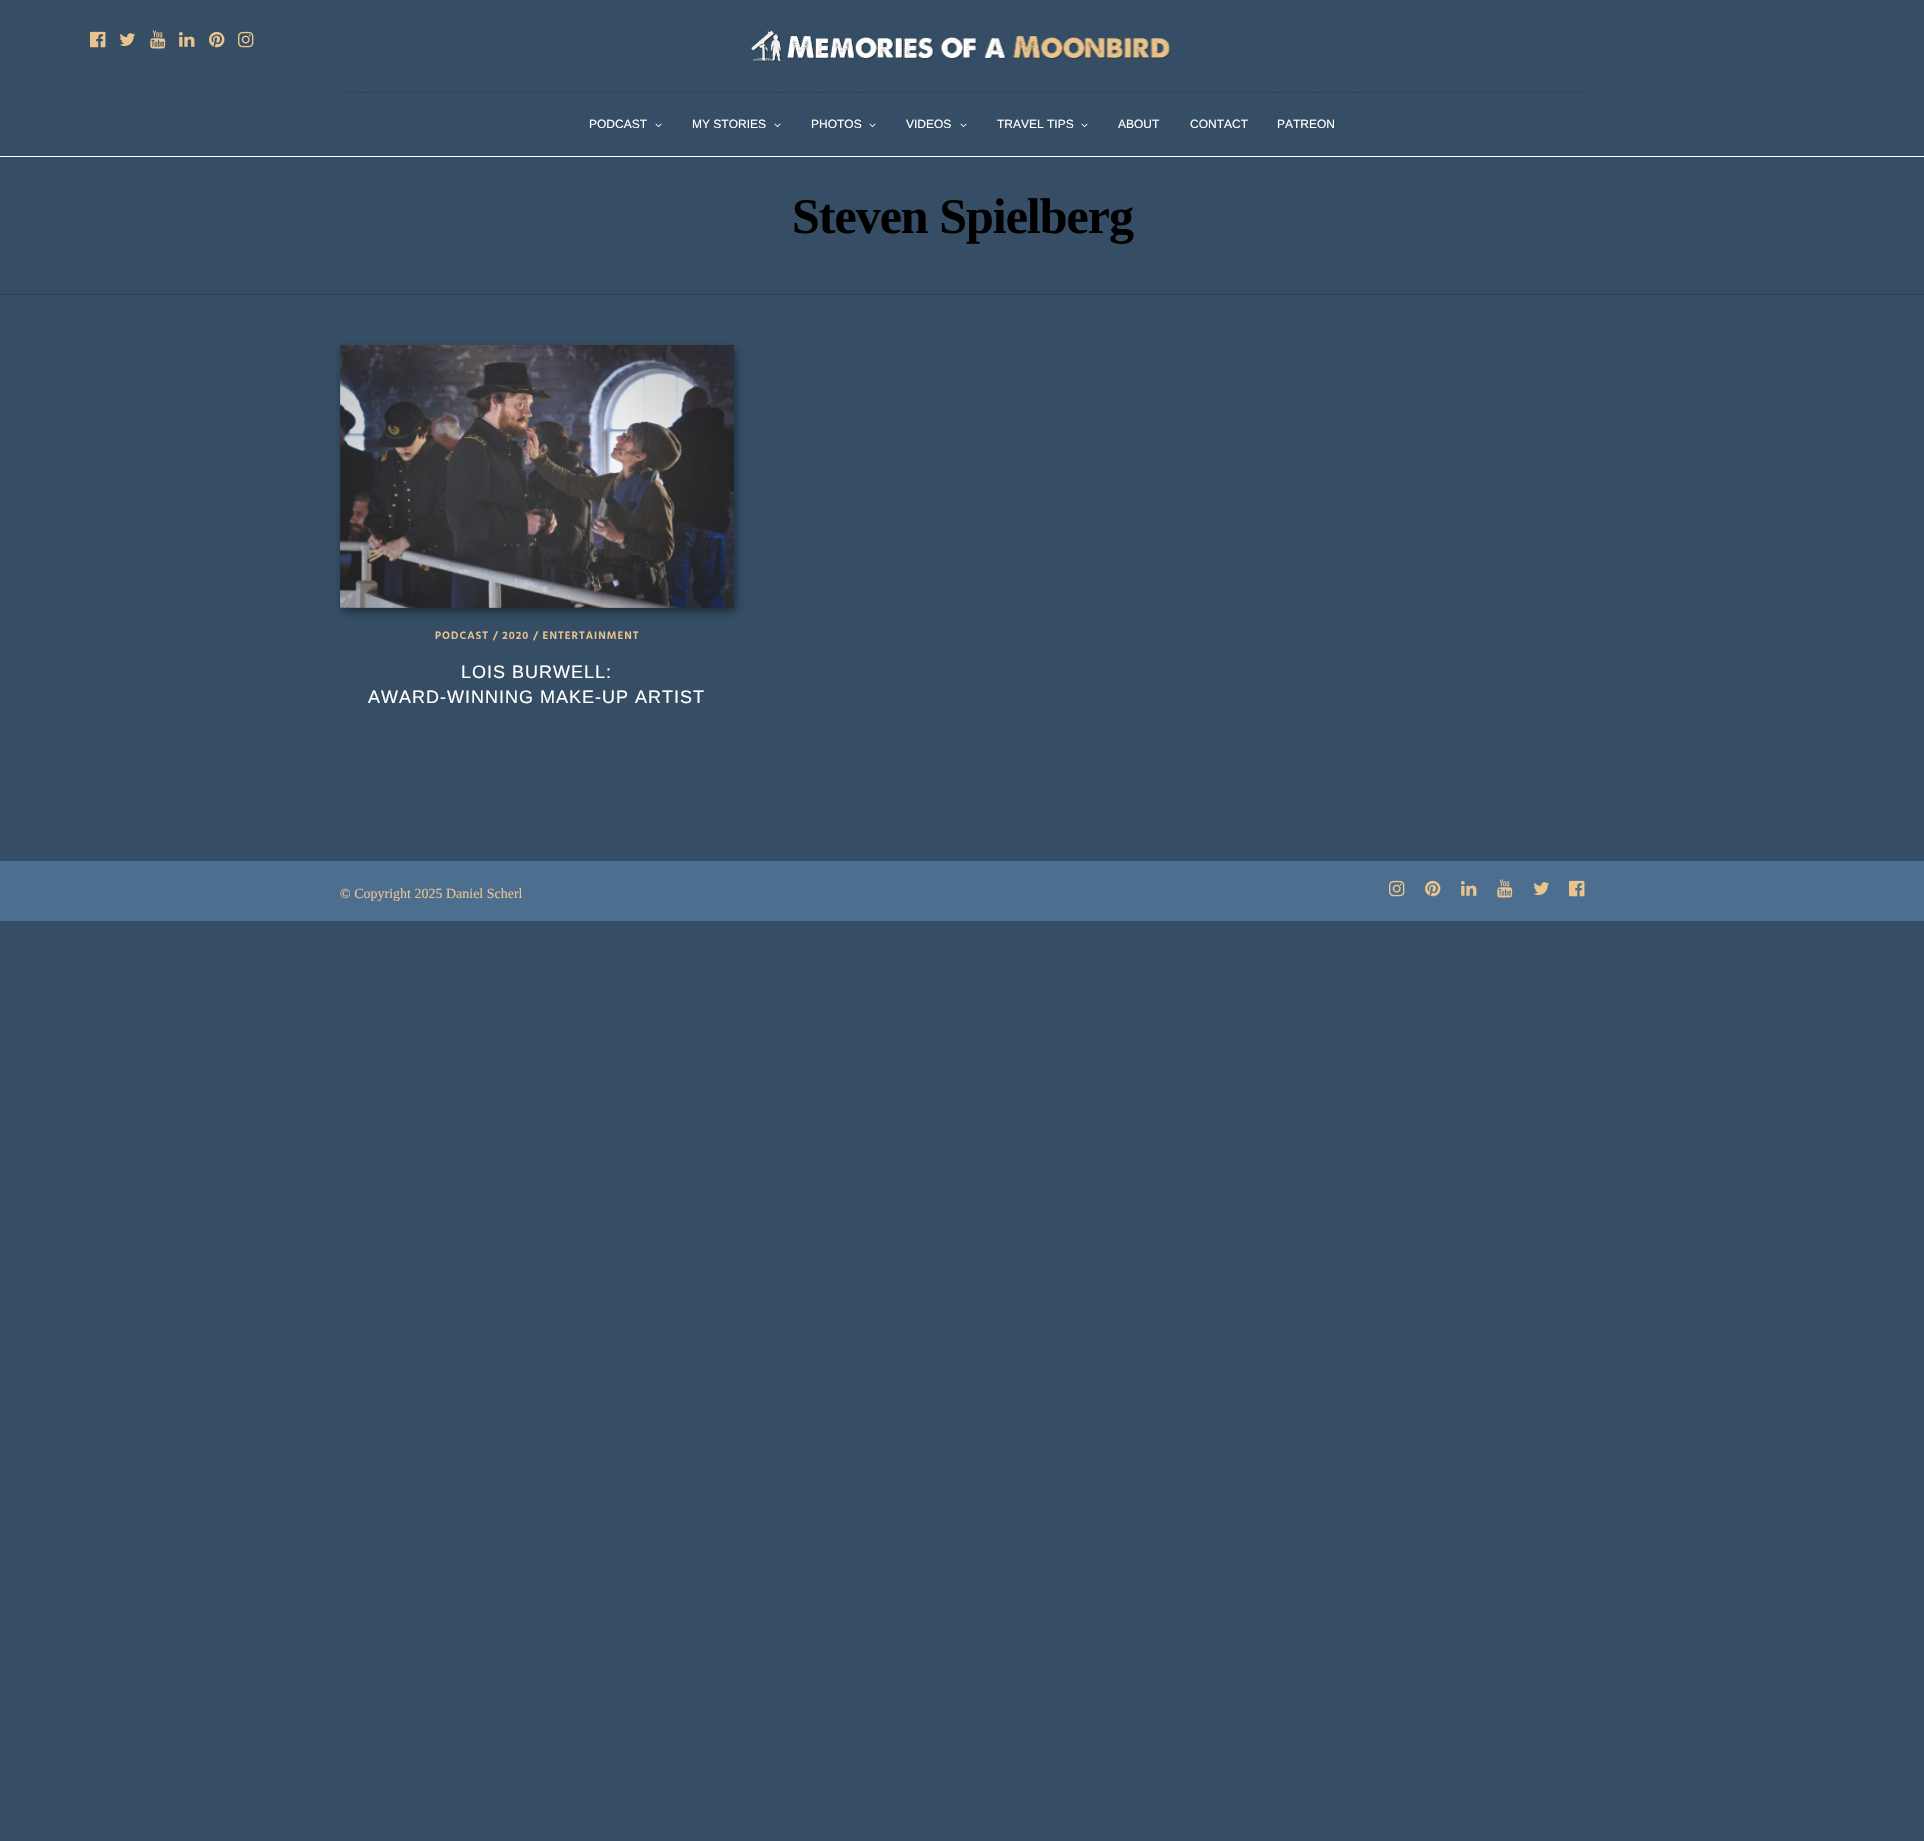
void draw(SkCanvas* canvas) {
	SkPaint fill;
	fill.setAntiAlias(true);
	auto makeFont = [&](const char* family, int weight, float size, bool italic = false) {
		SkFontStyle style(weight, SkFontStyle::kNormal_Width,
			italic ? SkFontStyle::kItalic_Slant : SkFontStyle::kUpright_Slant);
		SkFont result(fontMgr->matchFamilyStyle(family, style), size);
		result.setSubpixel(true);
		return result;
	};
	auto text = [&](const char* s, float x, float y, const SkFont& font) {
		canvas->drawString(s, x, y, font, fill);
	};
	auto spacedText = [&](const char* s, float x, float y, const SkFont& font, const SkPaint& ink, float letter, float word) {
		std::vector<SkGlyphID> glyphs(font.countText(s, strlen(s), SkTextEncoding::kUTF8));
		std::vector<float> xs(glyphs.size());
		font.textToGlyphs(s, strlen(s), SkTextEncoding::kUTF8, glyphs);
		font.getXPos(glyphs, xs, x);
		float extra = 0;
		for (size_t i = 0; i < glyphs.size(); i++) {
			xs[i] += extra;
			extra += letter + word * (glyphs[i] == font.unicharToGlyph(' '));
		}
		canvas->drawTextBlob(SkTextBlob::MakeFromPosHGlyphs(glyphs, xs, y, font), 0, 0, ink);
	};
	auto box = [&](float l, float t, float r, float b) {
		canvas->drawRect(SkRect::MakeLTRB(l, t, r, b), fill);
	};
	auto picture = [&](const char* path, float l, float t, float r, float b) {
		auto image = SkImages::DeferredFromEncodedData(SkData::MakeFromFileName(path));
		canvas->drawImageRect(image, SkRect::MakeLTRB(l, t, r, b), SkSamplingOptions());
	};
	canvas->clear(0xFF354E65);
	fill.setColor(0xFFFFFFFF);
	box(0, 156, 1924, 157);
	picture("image0.png", 90, 31, 106, 48);
	picture("image1.png", 119, 33, 136, 46);
	picture("image2.png", 150, 30, 166, 49);
	picture("image3.png", 179, 32, 195, 47);
	picture("image4.png", 209, 31, 225, 48);
	picture("image5.png", 238, 31, 254, 48);
	picture("image6.png", 751, 30, 1171, 62);
	fill.setStyle(SkPaint::kStroke_Style);
	fill.setStrokeWidth(1);
	fill.setColor(0xFF2E3E56);
	fill.setPathEffect(SkDashPathEffect::Make({{3, 2.01f}}, 0));
	canvas->drawPath(SkPathBuilder().moveTo(340, 92.5f).lineTo(1585, 92.5f).detach(), fill);
	fill.setPathEffect(nullptr);
	picture("image7.png", 655, 123, 662, 128);
	picture("image7.png", 774, 123, 781, 128);
	picture("image7.png", 869, 123, 876, 128);
	picture("image7.png", 960, 123, 967, 128);
	picture("image7.png", 1081, 123, 1088, 128);
	fill.setStyle(SkPaint::kFill_Style);
	box(0, 294, 1924, 295);
	fill.setColor(0x66000000);
	fill.setMaskFilter(SkMaskFilter::MakeBlur(kNormal_SkBlurStyle, 4));
	canvas->drawRect(SkRect::MakeLTRB(342, 349, 736, 612), fill);
	fill.setMaskFilter(nullptr);
	picture("image8.png", 340, 345, 734, 608);
	fill.setColor(0xFF4C6F90);
	box(0, 861, 1924, 921);
	picture("image9.png", 1389, 880, 1405, 897);
	picture("image10.png", 1425, 880, 1441, 897);
	picture("image11.png", 1461, 881, 1477, 896);
	picture("image12.png", 1497, 879, 1513, 898);
	picture("image13.png", 1533, 882, 1550, 895);
	picture("image14.png", 1569, 880, 1585, 897);
	auto font1 = makeFont("Liberation Sans", 400, 12);
	fill.setColor(0xFFFFFFFF);
	text("PODCAST", 589, 128, font1);
	text("MY STORIES", 692, 128, font1);
	text("PHOTOS", 811, 128, font1);
	text("VIDEOS", 906, 128, font1);
	text("TRAVEL TIPS", 997, 128, font1);
	text("ABOUT", 1118, 128, font1);
	text("CONTACT", 1190, 128, font1);
	text("PATREON", 1277, 128, font1);
	auto font2 = makeFont("Liberation Serif", 700, 50);
	fill.setColor(0xFF000000);
	spacedText("Steven Spielberg", 792, 233, font2, fill, -1, 0);
	auto font3 = makeFont("Hind", 600, 11);
	fill.setColor(0xFFEAC48E);
	spacedText("PODCAST / 2020 / ENTERTAINMENT", 435, 639, font3, fill, 1, 0);
	auto font4 = makeFont("Liberation Sans", 400, 18);
	fill.setColor(0xFFFFFFFF);
	spacedText("LOIS BURWELL:", 461, 678, font4, fill, 1, 0);
	spacedText("AWARD-WINNING MAKE-UP ARTIST", 368, 703, font4, fill, 1, 0);
	auto font5 = makeFont("Liberation Serif", 400, 14);
	fill.setColor(0xFFEAC48E);
	text("© Copyright 2025 Daniel Scherl", 340, 898, font5);
}
